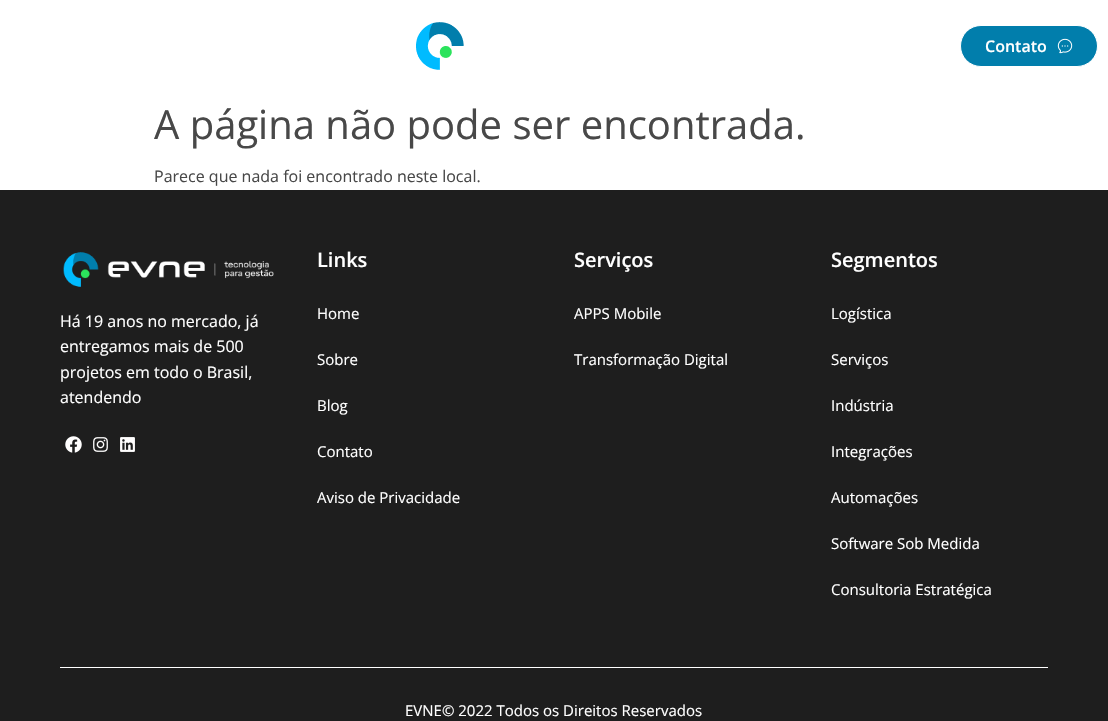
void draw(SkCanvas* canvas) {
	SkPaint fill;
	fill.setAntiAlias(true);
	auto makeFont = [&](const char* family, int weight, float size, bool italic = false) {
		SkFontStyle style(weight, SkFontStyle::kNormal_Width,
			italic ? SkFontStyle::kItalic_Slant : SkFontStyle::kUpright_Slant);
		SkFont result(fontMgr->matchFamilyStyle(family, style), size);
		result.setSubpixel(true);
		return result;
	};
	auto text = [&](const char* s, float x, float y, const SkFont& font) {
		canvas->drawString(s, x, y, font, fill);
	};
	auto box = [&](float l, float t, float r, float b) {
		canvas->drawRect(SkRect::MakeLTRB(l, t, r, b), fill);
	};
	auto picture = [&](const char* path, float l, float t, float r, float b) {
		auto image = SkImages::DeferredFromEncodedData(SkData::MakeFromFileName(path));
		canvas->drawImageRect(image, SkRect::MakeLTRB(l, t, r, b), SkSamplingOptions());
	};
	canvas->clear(0xFFFFFFFF);
	picture("image0.png", 416, 22, 464, 70);
	fill.setColor(0xFF017EAC);
	canvas->drawRoundRect(SkRect::MakeLTRB(960.5f, 25.5f, 1097.5f, 66.5f), 20.5f, 20.5f, fill);
	fill.setStyle(SkPaint::kStroke_Style);
	fill.setStrokeWidth(1);
	fill.setColor(0xFFFFFFFF);
	canvas->drawRoundRect(SkRect::MakeLTRB(960.5f, 25.5f, 1097.5f, 66.5f), 20.5f, 20.5f, fill);
	picture("image1.png", 1057, 38, 1073, 54);
	fill.setStyle(SkPaint::kFill_Style);
	fill.setColor(0xFF1E1E1E);
	box(0, 190, 1108, 721);
	picture("image2.png", 63, 252, 274, 287);
	picture("image3.png", 65, 436, 82, 453);
	picture("image4.png", 93, 437, 108, 452);
	picture("image5.png", 120, 437, 135, 452);
	fill.setColor(0xFFFFFFFF);
	box(60, 667, 1048, 668);
	auto font1 = makeFont("Open Sans", 600, 16);
	text("Contato", 985, 52, font1);
	auto font2 = makeFont("Open Sans", 400, 40);
	fill.setColor(0xFF484848);
	text("A página não pode ser encontrada.", 154, 139, font2);
	auto font3 = makeFont("Open Sans", 400, 16);
	text("Parece que nada foi encontrado neste local.", 154, 182, font3);
	fill.setColor(0xFFFFFFFF);
	text("Há 19 anos no mercado, já", 60, 327, font3);
	text("entregamos mais de 500", 60, 352, font3);
	text("projetos em todo o Brasil,", 60, 378, font3);
	text("atendendo", 60, 403, font3);
	auto font4 = makeFont("Open Sans", 600, 20);
	text("Links", 317, 267, font4);
	auto font5 = makeFont("Open Sans", 400, 15);
	text("Home", 317, 319, font5);
	text("Sobre", 317, 365, font5);
	text("Blog", 317, 411, font5);
	text("Contato", 317, 457, font5);
	text("Aviso de Privacidade", 317, 503, font5);
	text("Serviços", 574, 267, font4);
	text("APPS Mobile", 574, 319, font5);
	text("Transformação Digital", 574, 365, font5);
	text("Segmentos", 831, 267, font4);
	text("Logística", 831, 319, font5);
	text("Serviços", 831, 365, font5);
	text("Indústria", 831, 411, font5);
	text("Integrações", 831, 457, font5);
	text("Automações", 831, 503, font5);
	text("Software Sob Medida", 831, 549, font5);
	text("Consultoria Estratégica", 831, 595, font5);
	text("EVNE© 2022 Todos os Direitos Reservados", 405, 716, font5);
}
